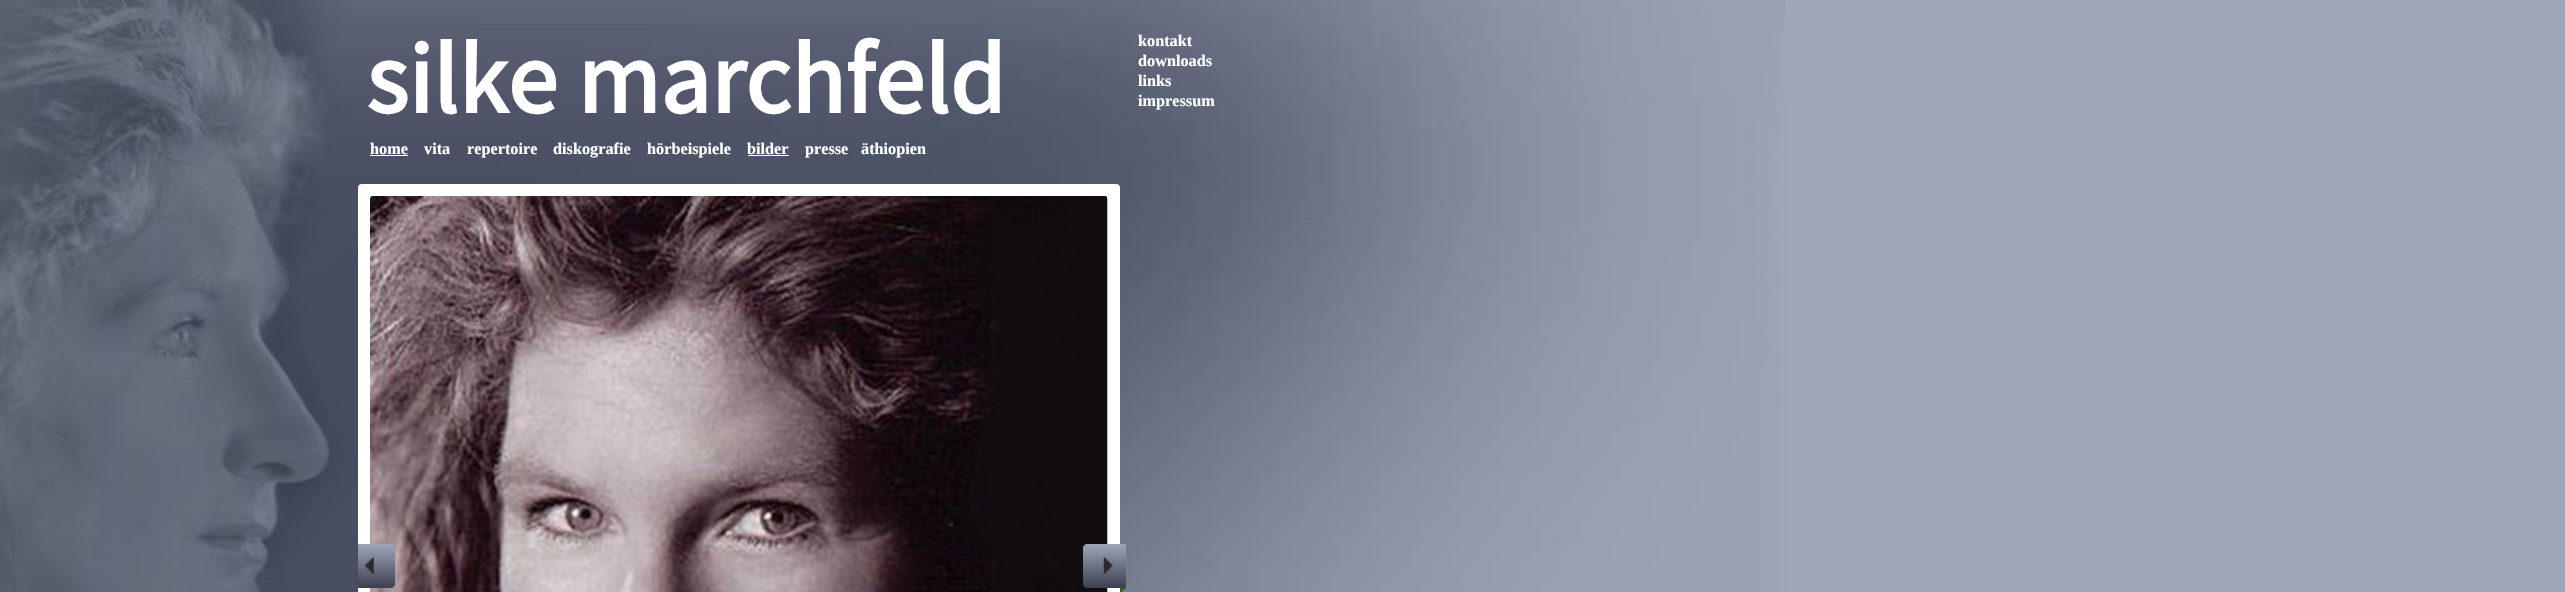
void draw(SkCanvas* canvas) {
	SkPaint fill;
	fill.setAntiAlias(true);
	auto makeFont = [&](const char* family, int weight, float size, bool italic = false) {
		SkFontStyle style(weight, SkFontStyle::kNormal_Width,
			italic ? SkFontStyle::kItalic_Slant : SkFontStyle::kUpright_Slant);
		SkFont result(fontMgr->matchFamilyStyle(family, style), size);
		result.setSubpixel(true);
		return result;
	};
	auto text = [&](const char* s, float x, float y, const SkFont& font) {
		canvas->drawString(s, x, y, font, fill);
	};
	auto box = [&](float l, float t, float r, float b) {
		canvas->drawRect(SkRect::MakeLTRB(l, t, r, b), fill);
	};
	auto roundBox = [&](float l, float t, float r, float b, float radius) {
		canvas->drawRoundRect(SkRect::MakeLTRB(l, t, r, b), radius, radius, fill);
	};
	auto picture = [&](const char* path, float l, float t, float r, float b) {
		auto image = SkImages::DeferredFromEncodedData(SkData::MakeFromFileName(path));
		canvas->drawImageRect(image, SkRect::MakeLTRB(l, t, r, b), SkSamplingOptions());
	};
	canvas->clear(0xFF9FA6B9);
	picture("image0.png", 0, 0, 1786, 592);
	fill.setColor(0xFFFFFFFF);
	box(370, 155, 408, 156);
	box(748, 155, 789, 156);
	fill.setColor(0x33000000);
	fill.setMaskFilter(SkMaskFilter::MakeBlur(kNormal_SkBlurStyle, 0.5f));
	canvas->drawRoundRect(SkRect::MakeLTRB(358, 185, 1120, 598), 4, 4, fill);
	fill.setMaskFilter(nullptr);
	fill.setColor(0xFFFFFFFF);
	roundBox(358, 184, 1120, 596, 4);
	picture("image1.png", 370, 196, 1108, 592);
	{
		const SkColor colors[] = {0xFF9FA6B9, 0xFF3A4050};
		const float stops[] = {0, 1};
		const SkPoint ends[] = {{373, 544}, {373, 588}};
		fill.setShader(SkGradientShader::MakeLinear(ends, colors, stops, 2, SkTileMode::kClamp));
		fill.setAlpha(255);
	}
	canvas->drawPath(SkPathBuilder().moveTo(358, 544).lineTo(391, 544).cubicTo(393, 544, 395, 546, 395, 548).lineTo(395, 584).cubicTo(395, 586, 393, 588, 391, 588).lineTo(358, 588).close().detach(), fill);
	picture("image2.png", 365, 557, 374, 574);
	{
		const SkColor colors[] = {0xFF9FA6B9, 0xFF3A4050};
		const float stops[] = {0, 1};
		const SkPoint ends[] = {{1104, 544}, {1104, 588}};
		fill.setShader(SkGradientShader::MakeLinear(ends, colors, stops, 2, SkTileMode::kClamp));
		fill.setAlpha(255);
	}
	canvas->drawPath(SkPathBuilder().moveTo(1087, 544).lineTo(1126, 544).lineTo(1126, 588).lineTo(1087, 588).cubicTo(1085, 588, 1083, 586, 1083, 584).lineTo(1083, 548).cubicTo(1083, 546, 1085, 544, 1087, 544).close().detach(), fill);
	picture("image3.png", 1103, 557, 1113, 574);
	fill.setShader(nullptr);
	fill.setColor(0xFF31611E);
	canvas->drawPath(SkPathBuilder().moveTo(1120, 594).lineTo(1120, 587.5f).lineTo(1126, 587.5f).close().detach(), fill);
	auto font1 = makeFont("Source Sans Pro", 700, 100);
	fill.setColor(0xFFFFFFFF);
	text("silke marchfeld", 366, 113, font1);
	auto font2 = makeFont("Liberation Serif", 700, 16.25f);
	text("kontakt", 1138, 46, font2);
	text("downloads", 1138, 66, font2);
	text("links", 1138, 86, font2);
	text("impressum", 1138, 106, font2);
	text("home", 370, 154, font2);
	text("vita", 424, 154, font2);
	text("repertoire", 467, 154, font2);
	text("diskografie", 553, 154, font2);
	text("hörbeispiele", 647, 154, font2);
	text("bilder", 747, 154, font2);
	text("presse", 805, 154, font2);
	text("äthiopien", 861, 154, font2);
}
